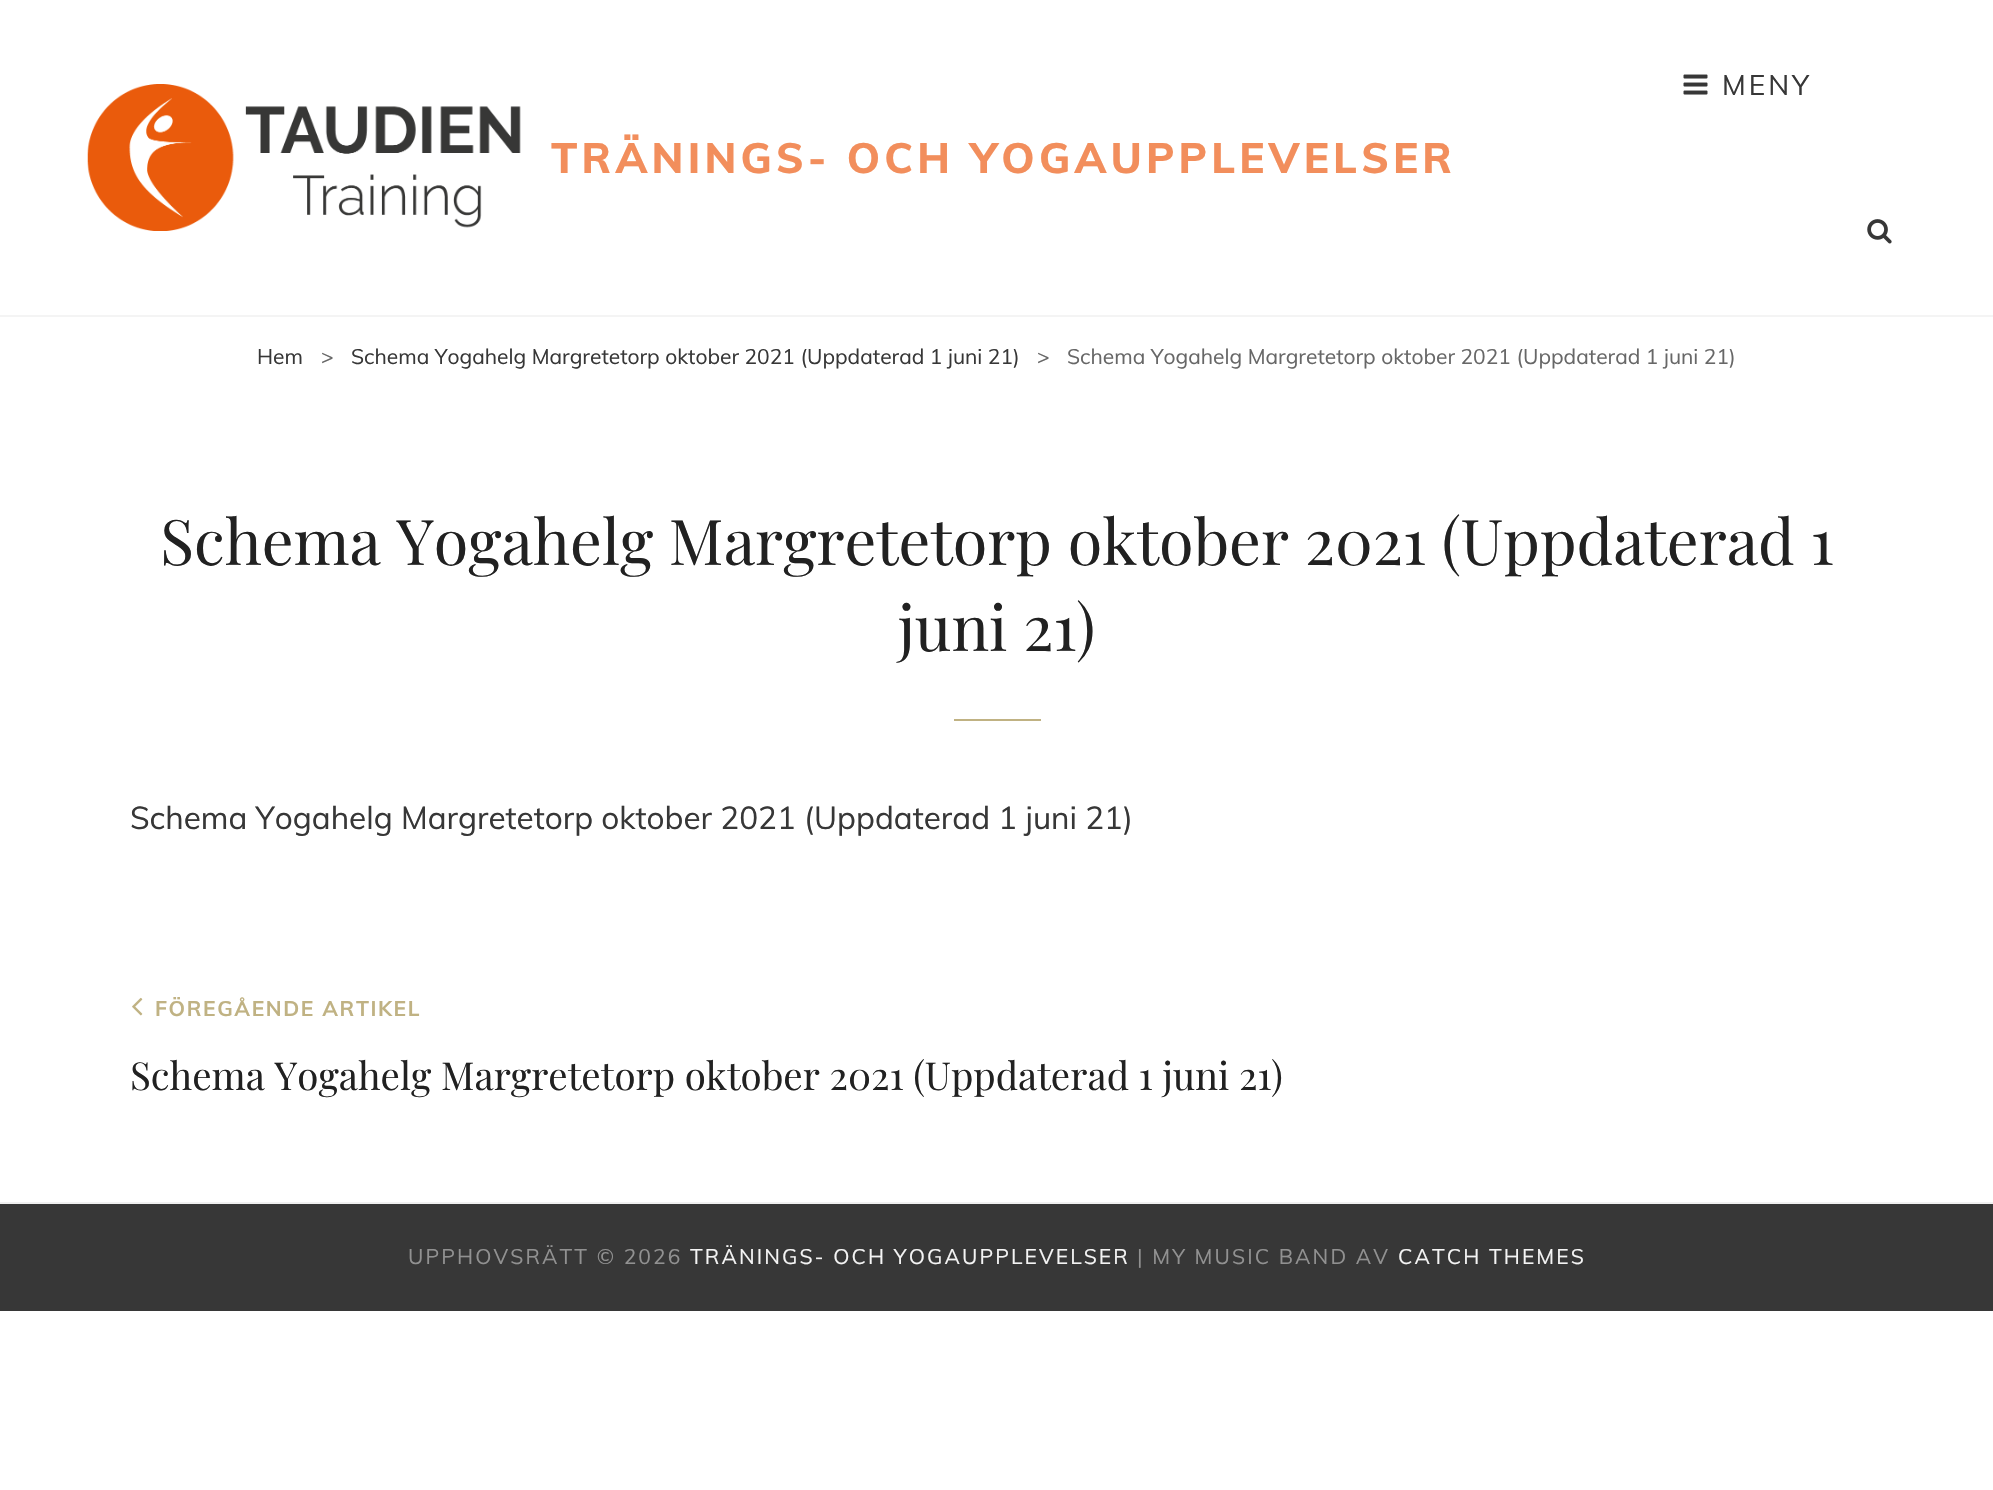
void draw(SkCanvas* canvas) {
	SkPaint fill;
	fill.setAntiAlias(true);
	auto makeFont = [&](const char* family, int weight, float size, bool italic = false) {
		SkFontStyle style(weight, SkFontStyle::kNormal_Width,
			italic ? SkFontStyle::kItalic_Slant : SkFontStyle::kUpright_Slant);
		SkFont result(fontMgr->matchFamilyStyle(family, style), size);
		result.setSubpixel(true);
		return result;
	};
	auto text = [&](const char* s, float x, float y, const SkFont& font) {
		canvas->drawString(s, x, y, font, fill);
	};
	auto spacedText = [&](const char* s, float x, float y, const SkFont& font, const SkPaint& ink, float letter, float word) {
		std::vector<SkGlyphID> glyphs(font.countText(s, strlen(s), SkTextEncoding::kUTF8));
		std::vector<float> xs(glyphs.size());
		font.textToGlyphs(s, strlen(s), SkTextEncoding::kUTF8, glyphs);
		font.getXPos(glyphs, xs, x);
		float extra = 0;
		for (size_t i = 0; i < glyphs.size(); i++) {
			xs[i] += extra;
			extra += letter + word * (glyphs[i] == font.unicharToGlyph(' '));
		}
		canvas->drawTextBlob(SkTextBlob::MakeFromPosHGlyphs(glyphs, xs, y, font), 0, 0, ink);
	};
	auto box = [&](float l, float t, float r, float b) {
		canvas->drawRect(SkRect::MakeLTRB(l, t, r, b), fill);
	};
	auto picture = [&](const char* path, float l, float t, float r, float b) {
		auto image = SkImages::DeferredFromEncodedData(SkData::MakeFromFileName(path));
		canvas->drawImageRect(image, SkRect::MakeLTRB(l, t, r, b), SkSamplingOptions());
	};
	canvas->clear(0xFFFFFFFF);
	fill.setColor(0xFFF4F4F4);
	box(0, 315, 1993, 317);
	picture("image0.png", 1683, 74, 1708, 95);
	picture("image1.png", 1867, 219, 1892, 244);
	picture("image2.png", 87, 84, 521, 231);
	fill.setColor(0xFFF0F0F0);
	box(0, 1202, 1993, 1204);
	fill.setColor(0xFFC0B283);
	box(954, 719, 1041, 721);
	picture("image3.png", 132, 997, 143, 1016);
	fill.setColor(0xFF373737);
	box(0, 1204, 1993, 1311);
	auto font1 = makeFont("Muli", 400, 28);
	spacedText("MENY", 1722, 95, font1, fill, 3, 0);
	auto font2 = makeFont("Muli", 800, 42);
	fill.setColor(0xFFF28E5C);
	spacedText("TRÄNINGS- OCH YOGAUPPLEVELSER", 551, 173, font2, fill, 4.2f, 0);
	auto font3 = makeFont("Muli", 400, 21);
	fill.setColor(0xFF373737);
	text("Hem", 257, 364, font3);
	fill.setColor(0xFF676767);
	text(">", 321, 364, font3);
	fill.setColor(0xFF373737);
	text("Schema Yogahelg Margretetorp oktober 2021 (Uppdaterad 1 juni 21)", 351, 364, font3);
	fill.setColor(0xFF676767);
	text(">", 1037, 364, font3);
	text("Schema Yogahelg Margretetorp oktober 2021 (Uppdaterad 1 juni 21)", 1067, 364, font3);
	auto font4 = makeFont("Playfair Display", 400, 63);
	fill.setColor(0xFF212121);
	text("Schema Yogahelg Margretetorp oktober 2021 (Uppdaterad 1", 160, 565, font4);
	text("juni 21)", 898, 651, font4);
	auto font5 = makeFont("Muli", 400, 31.5f);
	fill.setColor(0xFF373737);
	text("Schema Yogahelg Margretetorp oktober 2021 (Uppdaterad 1 juni 21)", 130, 829, font5);
	auto font6 = makeFont("Muli", 700, 21);
	fill.setColor(0xFFC0B283);
	spacedText("FÖREGÅENDE ARTIKEL", 155, 1016, font6, fill, 1.6f, 0);
	auto font7 = makeFont("Playfair Display", 400, 38.5f);
	fill.setColor(0xFF212121);
	text("Schema Yogahelg Margretetorp oktober 2021 (Uppdaterad 1 juni 21)", 130, 1090, font7);
	fill.setColor(0xFF919191);
	spacedText("UPPHOVSRÄTT © 2026", 408, 1264, font3, fill, 2.1f, 0);
	fill.setColor(0xFFF4F4F4);
	spacedText("TRÄNINGS- OCH YOGAUPPLEVELSER", 690, 1264, font3, fill, 2.1f, 0);
	fill.setColor(0xFF919191);
	spacedText("| MY MUSIC BAND AV", 1137, 1264, font3, fill, 2.1f, 0);
	fill.setColor(0xFFF4F4F4);
	spacedText("CATCH THEMES", 1398, 1264, font3, fill, 2.1f, 0);
}
